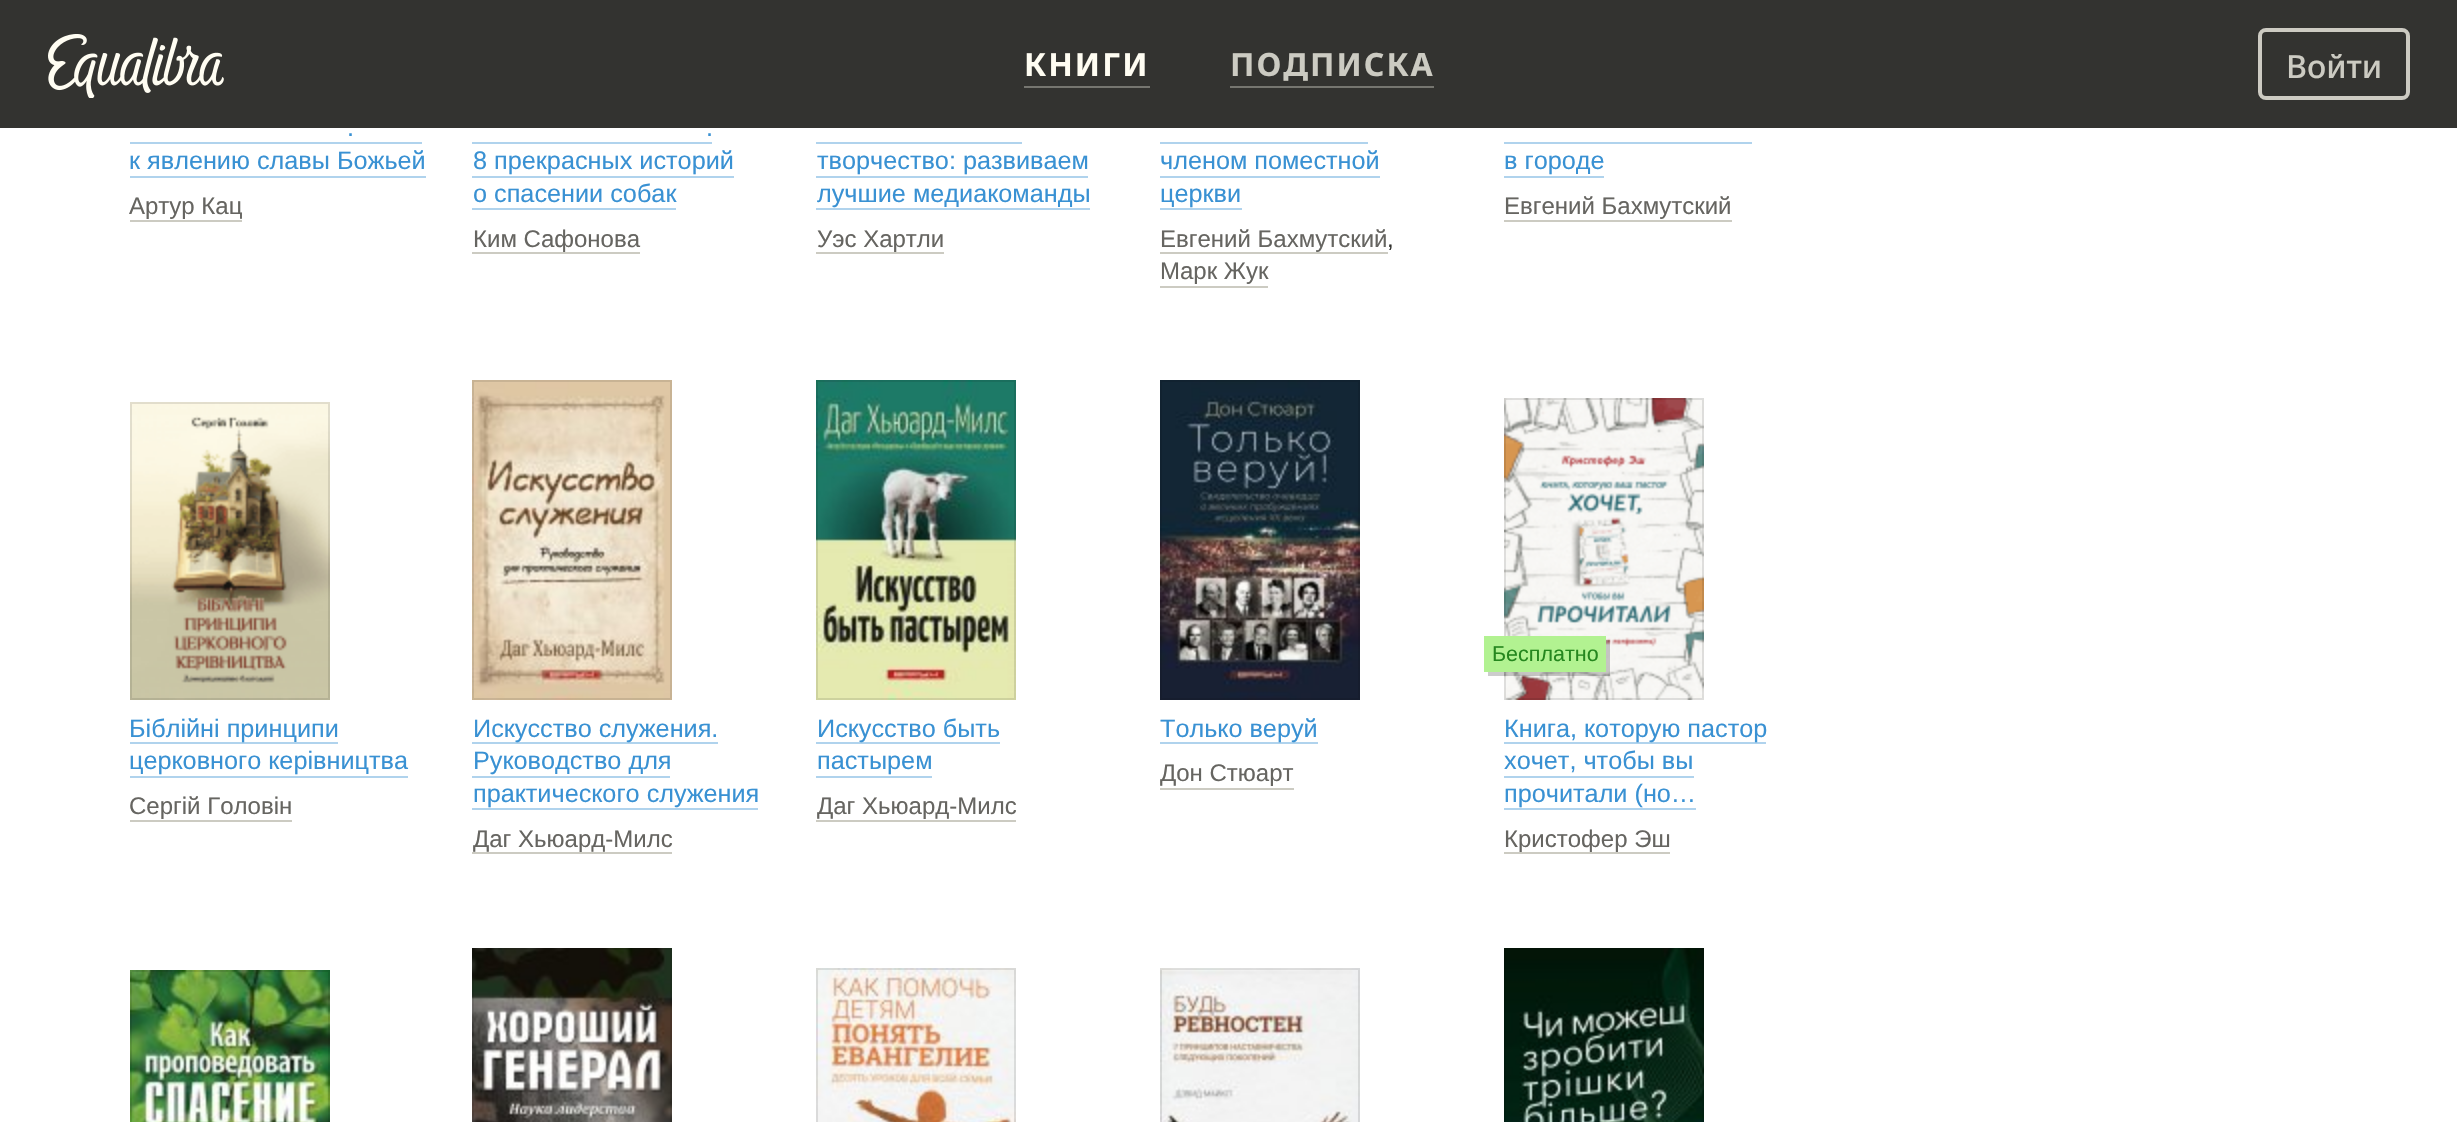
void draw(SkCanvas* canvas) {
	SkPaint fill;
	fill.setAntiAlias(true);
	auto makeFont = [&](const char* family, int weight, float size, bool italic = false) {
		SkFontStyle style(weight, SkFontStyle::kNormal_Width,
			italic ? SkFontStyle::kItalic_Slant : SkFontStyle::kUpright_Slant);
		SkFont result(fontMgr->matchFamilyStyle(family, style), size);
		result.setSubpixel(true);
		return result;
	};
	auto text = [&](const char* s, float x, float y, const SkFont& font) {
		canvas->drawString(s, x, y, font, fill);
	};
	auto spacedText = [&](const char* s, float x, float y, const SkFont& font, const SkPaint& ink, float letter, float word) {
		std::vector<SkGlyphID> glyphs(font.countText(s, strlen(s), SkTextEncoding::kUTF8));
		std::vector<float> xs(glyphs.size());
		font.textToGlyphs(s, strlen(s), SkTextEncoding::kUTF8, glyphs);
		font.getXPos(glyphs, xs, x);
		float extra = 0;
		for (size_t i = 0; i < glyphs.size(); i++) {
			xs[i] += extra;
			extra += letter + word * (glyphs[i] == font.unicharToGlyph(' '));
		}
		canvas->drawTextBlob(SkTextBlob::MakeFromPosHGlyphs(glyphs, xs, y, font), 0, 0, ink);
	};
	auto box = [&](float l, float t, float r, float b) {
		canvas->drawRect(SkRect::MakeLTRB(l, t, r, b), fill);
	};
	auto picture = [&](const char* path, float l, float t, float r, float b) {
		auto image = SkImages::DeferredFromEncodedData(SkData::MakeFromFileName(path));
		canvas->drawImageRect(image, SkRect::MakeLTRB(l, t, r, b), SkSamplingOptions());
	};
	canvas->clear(0xFFFFFFFF);
	fill.setColor(0xFF333330);
	box(0, 0, 2457, 128);
	picture("image0.png", 48, 34, 224, 98);
	fill.setColor(0xFF767670);
	box(1024, 86, 1150, 88);
	box(1230, 86, 1434, 88);
	fill.setStyle(SkPaint::kStroke_Style);
	fill.setStrokeWidth(4);
	fill.setColor(0xFFCDCBC2);
	canvas->drawRoundRect(SkRect::MakeLTRB(2260, 30, 2408, 98), 6, 6, fill);
	fill.setStyle(SkPaint::kFill_Style);
	fill.setColor(0xFFB0D3ED);
	box(130, 142, 422, 144);
	box(130, 176, 426, 178);
	fill.setColor(0xFFCCCBC2);
	box(130, 220, 242, 222);
	fill.setColor(0xFFB0D3ED);
	box(472, 142, 712, 144);
	box(472, 176, 734, 178);
	box(472, 208, 676, 210);
	fill.setColor(0xFFCCCBC2);
	box(472, 252, 640, 254);
	fill.setColor(0xFFB0D3ED);
	box(816, 142, 1022, 144);
	box(816, 176, 1088, 178);
	box(816, 208, 1090, 210);
	fill.setColor(0xFFCCCBC2);
	box(816, 252, 944, 254);
	fill.setColor(0xFFB0D3ED);
	box(1160, 142, 1368, 144);
	box(1160, 176, 1380, 178);
	box(1160, 208, 1242, 210);
	fill.setColor(0xFFCCCBC2);
	box(1160, 252, 1388, 254);
	box(1160, 286, 1268, 288);
	fill.setColor(0xFFB0D3ED);
	box(1504, 142, 1752, 144);
	box(1504, 176, 1604, 178);
	fill.setColor(0xFFCCCBC2);
	box(1504, 220, 1732, 222);
	picture("image1.png", 130, 402, 330, 700);
	fill.setStyle(SkPaint::kStroke_Style);
	fill.setStrokeWidth(2);
	fill.setColor(0x1A000000);
	canvas->drawRect(SkRect::MakeLTRB(131, 403, 329, 699), fill);
	fill.setStyle(SkPaint::kFill_Style);
	fill.setColor(0xFFB0D3ED);
	box(130, 742, 338, 744);
	box(130, 776, 408, 778);
	fill.setColor(0xFFCCCBC2);
	box(130, 820, 292, 822);
	picture("image2.png", 472, 380, 672, 700);
	fill.setStyle(SkPaint::kStroke_Style);
	fill.setColor(0x1A000000);
	canvas->drawRect(SkRect::MakeLTRB(473, 381, 671, 699), fill);
	fill.setStyle(SkPaint::kFill_Style);
	fill.setColor(0xFFB0D3ED);
	box(472, 742, 718, 744);
	box(472, 776, 670, 778);
	box(472, 808, 758, 810);
	fill.setColor(0xFFCCCBC2);
	box(472, 852, 672, 854);
	picture("image3.png", 816, 380, 1016, 700);
	fill.setStyle(SkPaint::kStroke_Style);
	fill.setColor(0x1A000000);
	canvas->drawRect(SkRect::MakeLTRB(817, 381, 1015, 699), fill);
	fill.setStyle(SkPaint::kFill_Style);
	fill.setColor(0xFFB0D3ED);
	box(816, 742, 1000, 744);
	box(816, 776, 932, 778);
	fill.setColor(0xFFCCCBC2);
	box(816, 820, 1016, 822);
	picture("image4.png", 1160, 380, 1360, 700);
	fill.setStyle(SkPaint::kStroke_Style);
	fill.setColor(0x1A000000);
	canvas->drawRect(SkRect::MakeLTRB(1161, 381, 1359, 699), fill);
	fill.setStyle(SkPaint::kFill_Style);
	fill.setColor(0xFFB0D3ED);
	box(1160, 742, 1318, 744);
	fill.setColor(0xFFCCCBC2);
	box(1160, 788, 1294, 790);
	picture("image5.png", 1504, 398, 1704, 700);
	fill.setStyle(SkPaint::kStroke_Style);
	fill.setColor(0x1A000000);
	canvas->drawRect(SkRect::MakeLTRB(1505, 399, 1703, 699), fill);
	fill.setStyle(SkPaint::kFill_Style);
	fill.setColor(0x33000000);
	canvas->drawPath(SkPathBuilder().moveTo(1488, 672).lineTo(1488, 676).lineTo(1610, 676).lineTo(1610, 640).lineTo(1606, 640).lineTo(1606, 672).close().detach(), fill);
	fill.setColor(0xFFB2F291);
	box(1484, 636, 1606, 672);
	fill.setColor(0xFFB0D3ED);
	box(1504, 742, 1766, 744);
	box(1504, 776, 1694, 778);
	box(1504, 808, 1696, 810);
	fill.setColor(0xFFCCCBC2);
	box(1504, 852, 1670, 854);
	picture("image6.png", 130, 970, 330, 1122);
	fill.setStyle(SkPaint::kStroke_Style);
	fill.setColor(0x1A000000);
	canvas->drawRect(SkRect::MakeLTRB(131, 971, 329, 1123), fill);
	picture("image7.png", 472, 948, 672, 1122);
	canvas->drawRect(SkRect::MakeLTRB(473, 949, 671, 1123), fill);
	picture("image8.png", 816, 968, 1016, 1122);
	canvas->drawRect(SkRect::MakeLTRB(817, 969, 1015, 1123), fill);
	picture("image9.png", 1160, 968, 1360, 1122);
	canvas->drawRect(SkRect::MakeLTRB(1161, 969, 1359, 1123), fill);
	picture("image10.png", 1504, 948, 1704, 1122);
	canvas->drawRect(SkRect::MakeLTRB(1505, 949, 1703, 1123), fill);
	auto font1 = makeFont("Noto Sans", 700, 32);
	fill.setStyle(SkPaint::kFill_Style);
	fill.setColor(0xFFFFFDF2);
	spacedText("КНИГИ", 1024, 76, font1, fill, 2, 0);
	fill.setColor(0xFFCCCBC2);
	spacedText("ПОДПИСКА", 1230, 76, font1, fill, 2, 0);
	auto font2 = makeFont("Noto Sans", 500, 32);
	text("Войти", 2286, 78, font2);
	auto font3 = makeFont("Liberation Sans", 400, 25.25f);
	fill.setColor(0xFF3991D3);
	text(".", 347, 136, font3);
	text("к явлению славы Божьей", 129, 169, font3);
	auto font4 = makeFont("Liberation Sans", 400, 24);
	fill.setColor(0xFF666561);
	text("Артур Кац", 129, 214, font4);
	fill.setColor(0xFF3991D3);
	text(".", 706, 136, font3);
	text("8 прекрасных историй", 473, 169, font3);
	text("о спасении собак", 473, 202, font3);
	fill.setColor(0xFF666561);
	text("Ким Сафонова", 473, 247, font4);
	fill.setColor(0xFF3991D3);
	text("творчество: развиваем", 817, 169, font3);
	text("лучшие медиакоманды", 817, 202, font3);
	fill.setColor(0xFF666561);
	text("Уэс Хартли", 817, 247, font4);
	fill.setColor(0xFF3991D3);
	text("членом поместной", 1160, 169, font3);
	text("церкви", 1160, 202, font3);
	fill.setColor(0xFF666561);
	text("Евгений Бахмутский", 1160, 247, font4);
	fill.setColor(0xFF333330);
	text(",", 1387, 247, font4);
	fill.setColor(0xFF666561);
	text("Марк Жук", 1160, 279, font4);
	fill.setColor(0xFF3991D3);
	text("в городе", 1504, 169, font3);
	fill.setColor(0xFF666561);
	text("Евгений Бахмутский", 1504, 214, font4);
	fill.setColor(0xFF3991D3);
	text("Біблійні принципи", 129, 737, font3);
	text("церковного керівництва", 129, 769, font3);
	fill.setColor(0xFF666561);
	text("Сергій Головін", 129, 814, font4);
	fill.setColor(0xFF3991D3);
	text("Искусство служения.", 473, 737, font3);
	text("Руководство для", 473, 769, font3);
	text("практического служения", 473, 802, font3);
	fill.setColor(0xFF666561);
	text("Даг Хьюард-Милс", 473, 847, font4);
	fill.setColor(0xFF3991D3);
	text("Искусство быть", 817, 737, font3);
	text("пастырем", 817, 769, font3);
	fill.setColor(0xFF666561);
	text("Даг Хьюард-Милс", 817, 814, font4);
	fill.setColor(0xFF3991D3);
	text("Только веруй", 1160, 737, font3);
	fill.setColor(0xFF666561);
	text("Дон Стюарт", 1160, 781, font4);
	auto font5 = makeFont("Liberation Sans", 400, 21.5f);
	fill.setColor(0xFF25871E);
	text("Бесплатно", 1492, 661, font5);
	fill.setColor(0xFF3991D3);
	text("Книга, которую пастор", 1504, 737, font3);
	text("хочет, чтобы вы", 1504, 769, font3);
	text("прочитали (но…", 1504, 802, font3);
	fill.setColor(0xFF666561);
	text("Кристофер Эш", 1504, 847, font4);
}
